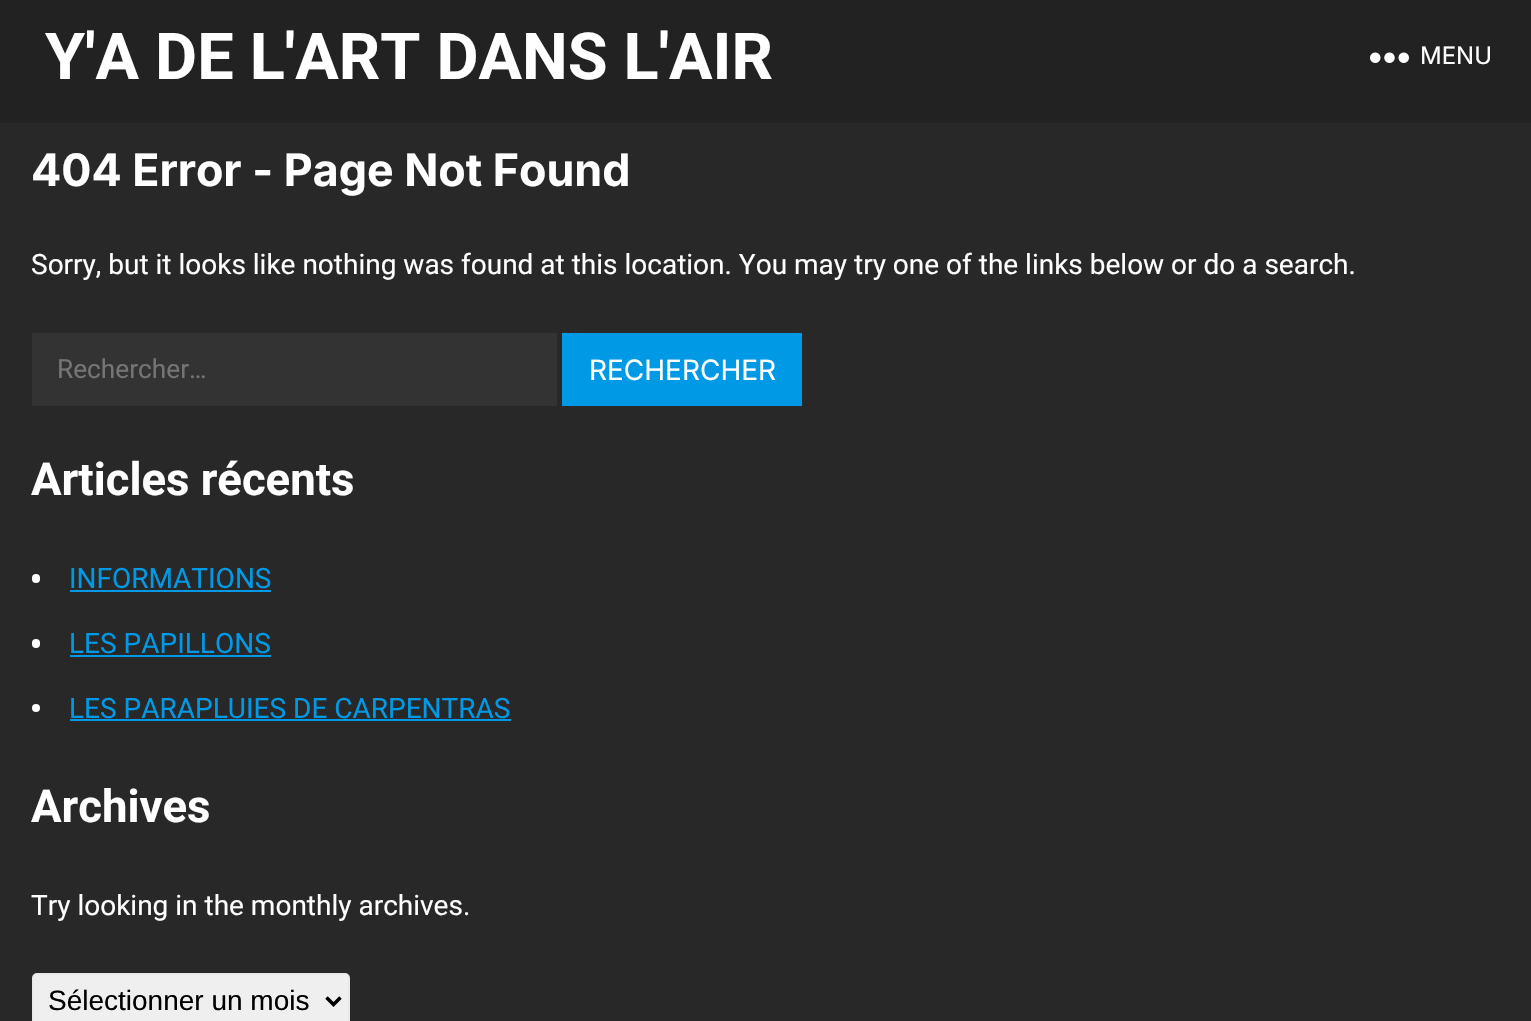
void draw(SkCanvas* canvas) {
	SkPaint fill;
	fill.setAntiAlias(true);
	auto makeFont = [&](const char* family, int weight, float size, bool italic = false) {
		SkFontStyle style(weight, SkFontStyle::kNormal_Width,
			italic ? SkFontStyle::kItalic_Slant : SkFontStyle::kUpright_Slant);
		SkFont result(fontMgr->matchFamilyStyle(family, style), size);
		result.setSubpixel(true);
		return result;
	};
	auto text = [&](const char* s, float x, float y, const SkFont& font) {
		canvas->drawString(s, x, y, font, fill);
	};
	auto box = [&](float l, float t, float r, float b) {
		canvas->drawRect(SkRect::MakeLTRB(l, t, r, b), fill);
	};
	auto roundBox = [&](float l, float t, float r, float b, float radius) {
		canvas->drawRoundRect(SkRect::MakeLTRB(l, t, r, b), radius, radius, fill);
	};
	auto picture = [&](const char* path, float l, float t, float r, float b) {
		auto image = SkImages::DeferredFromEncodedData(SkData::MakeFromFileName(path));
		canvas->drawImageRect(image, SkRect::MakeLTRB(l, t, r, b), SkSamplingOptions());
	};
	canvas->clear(0xFF282828);
	fill.setColor(0xFF222222);
	box(0, 0, 1531, 123);
	picture("image0.png", 1370, 52, 1409, 63);
	fill.setColor(0xFF333333);
	box(32, 333, 557, 406);
	fill.setColor(0xFF0099E5);
	box(562, 333, 802, 406);
	fill.setColor(0xFFFFFFFF);
	roundBox(32, 574, 40, 583, 4);
	fill.setColor(0xFF0099E5);
	box(70, 590, 271, 592);
	fill.setColor(0xFFFFFFFF);
	roundBox(32, 639, 40, 648, 4);
	fill.setColor(0xFF0099E5);
	box(70, 655, 271, 657);
	fill.setColor(0xFFFFFFFF);
	canvas->drawCircle(36, 708, 4, fill);
	fill.setColor(0xFF0099E5);
	box(70, 719, 511, 721);
	fill.setColor(0xFFEFEFEF);
	canvas->drawRoundRect(SkRect::MakeLTRB(33, 974, 349, 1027), 4, 4, fill);
	fill.setStyle(SkPaint::kStroke_Style);
	fill.setStrokeWidth(2);
	fill.setColor(0xFFE9E9E9);
	canvas->drawRoundRect(SkRect::MakeLTRB(33, 974, 349, 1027), 4, 4, fill);
	fill.setStrokeWidth(3.5f);
	fill.setColor(0xFF000000);
	canvas->drawPath(SkPathBuilder().moveTo(326.5f, 997.5f).lineTo(333.5f, 1004.5f).lineTo(340.5f, 997.5f).detach(), fill);
	auto font1 = makeFont("Roboto", 700, 64.75f);
	fill.setStyle(SkPaint::kFill_Style);
	fill.setColor(0xFFFFFFFF);
	text("Y'A DE L'ART DANS L'AIR", 45, 79, font1);
	auto font2 = makeFont("Inter", 400, 24);
	text("MENU", 1420, 64, font2);
	auto font3 = makeFont("Inter", 700, 44.75f);
	text("404 Error - Page Not Found", 31, 186, font3);
	auto font4 = makeFont("Roboto", 400, 28);
	text("Sorry, but it looks like nothing was found at this location. You may try one of the links below or do a search.", 31, 274, font4);
	auto font5 = makeFont("Roboto", 400, 26.25f);
	fill.setColor(0xFF757575);
	text("Rechercher…", 57, 378, font5);
	auto font6 = makeFont("Inter", 400, 28);
	fill.setColor(0xFFFFFFFF);
	text("RECHERCHER", 589, 380, font6);
	auto font7 = makeFont("Roboto", 700, 45.5f);
	text("Articles récents", 31, 495, font7);
	fill.setColor(0xFF0099E5);
	text("INFORMATIONS", 69, 588, font4);
	text("LES PAPILLONS", 69, 653, font4);
	text("LES PARAPLUIES DE CARPENTRAS", 69, 718, font4);
	fill.setColor(0xFFFFFFFF);
	text("Archives", 31, 822, font7);
	text("Try looking in the monthly archives.", 31, 915, font4);
	auto font8 = makeFont("Liberation Sans", 400, 28);
	fill.setColor(0xFF000000);
	text("Sélectionner un mois", 48, 1010, font8);
}
